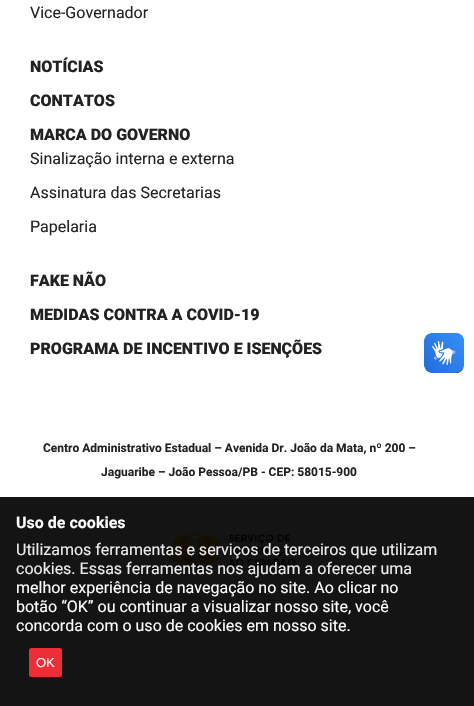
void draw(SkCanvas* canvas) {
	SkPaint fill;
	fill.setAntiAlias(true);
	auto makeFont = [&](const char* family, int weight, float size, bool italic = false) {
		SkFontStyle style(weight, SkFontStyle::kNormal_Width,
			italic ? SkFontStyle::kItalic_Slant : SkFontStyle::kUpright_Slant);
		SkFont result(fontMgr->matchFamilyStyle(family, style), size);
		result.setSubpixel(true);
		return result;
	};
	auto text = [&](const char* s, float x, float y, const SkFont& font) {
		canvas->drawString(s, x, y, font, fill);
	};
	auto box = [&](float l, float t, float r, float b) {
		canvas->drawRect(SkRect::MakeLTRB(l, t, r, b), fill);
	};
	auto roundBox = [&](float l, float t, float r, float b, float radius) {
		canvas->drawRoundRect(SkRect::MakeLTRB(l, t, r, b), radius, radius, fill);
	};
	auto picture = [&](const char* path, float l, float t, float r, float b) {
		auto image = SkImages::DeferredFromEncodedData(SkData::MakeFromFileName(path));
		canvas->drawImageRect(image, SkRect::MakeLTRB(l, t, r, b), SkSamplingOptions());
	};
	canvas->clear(0xFFFFFFFF);
	picture("image0.png", 172, 532, 299, 570);
	picture("image1.png", 424, 333, 464, 373);
	picture("image2.png", 424, 333, 464, 373);
	fill.setColor(0xEB000000);
	box(0, 497, 474, 706);
	fill.setColor(0xFFEE2E36);
	roundBox(29, 648, 62, 677, 2.5f);
	auto font1 = makeFont("Roboto", 400, 16);
	fill.setColor(0xFF222222);
	text("Vice-Governador", 30, 18, font1);
	auto font2 = makeFont("Roboto", 900, 16);
	text("NOTÍCIAS", 30, 72, font2);
	text("CONTATOS", 30, 106, font2);
	text("MARCA DO GOVERNO", 30, 140, font2);
	text("Sinalização interna e externa", 30, 164, font1);
	text("Assinatura das Secretarias", 30, 198, font1);
	text("Papelaria", 30, 232, font1);
	text("FAKE NÃO", 30, 286, font2);
	text("MEDIDAS CONTRA A COVID-19", 30, 320, font2);
	text("PROGRAMA DE INCENTIVO E ISENÇÕES", 30, 354, font2);
	auto font3 = makeFont("Roboto", 700, 12);
	text("Centro Administrativo Estadual – Avenida Dr. João da Mata, nº 200 –", 43, 452, font3);
	text("Jaguaribe – João Pessoa/PB - CEP: 58015-900", 101, 476, font3);
	auto font4 = makeFont("Roboto", 700, 16);
	fill.setColor(0xFFFFFFFF);
	text("Uso de cookies", 16, 528, font4);
	fill.setColor(0xFFECECEC);
	text("Utilizamos ferramentas e serviços de terceiros que utilizam", 16, 555, font1);
	text("cookies. Essas ferramentas nos ajudam a oferecer uma", 16, 574, font1);
	fill.setColor(0xFFFFFFFF);
	text("melhor experiência de navegação no site. Ao clicar no", 16, 593, font1);
	text("botão “OK” ou continuar a visualizar nosso site, você", 16, 612, font1);
	text("concorda com o uso de cookies em nosso site.", 16, 631, font1);
	auto font5 = makeFont("Liberation Sans", 400, 13);
	text("OK", 36, 667, font5);
}
